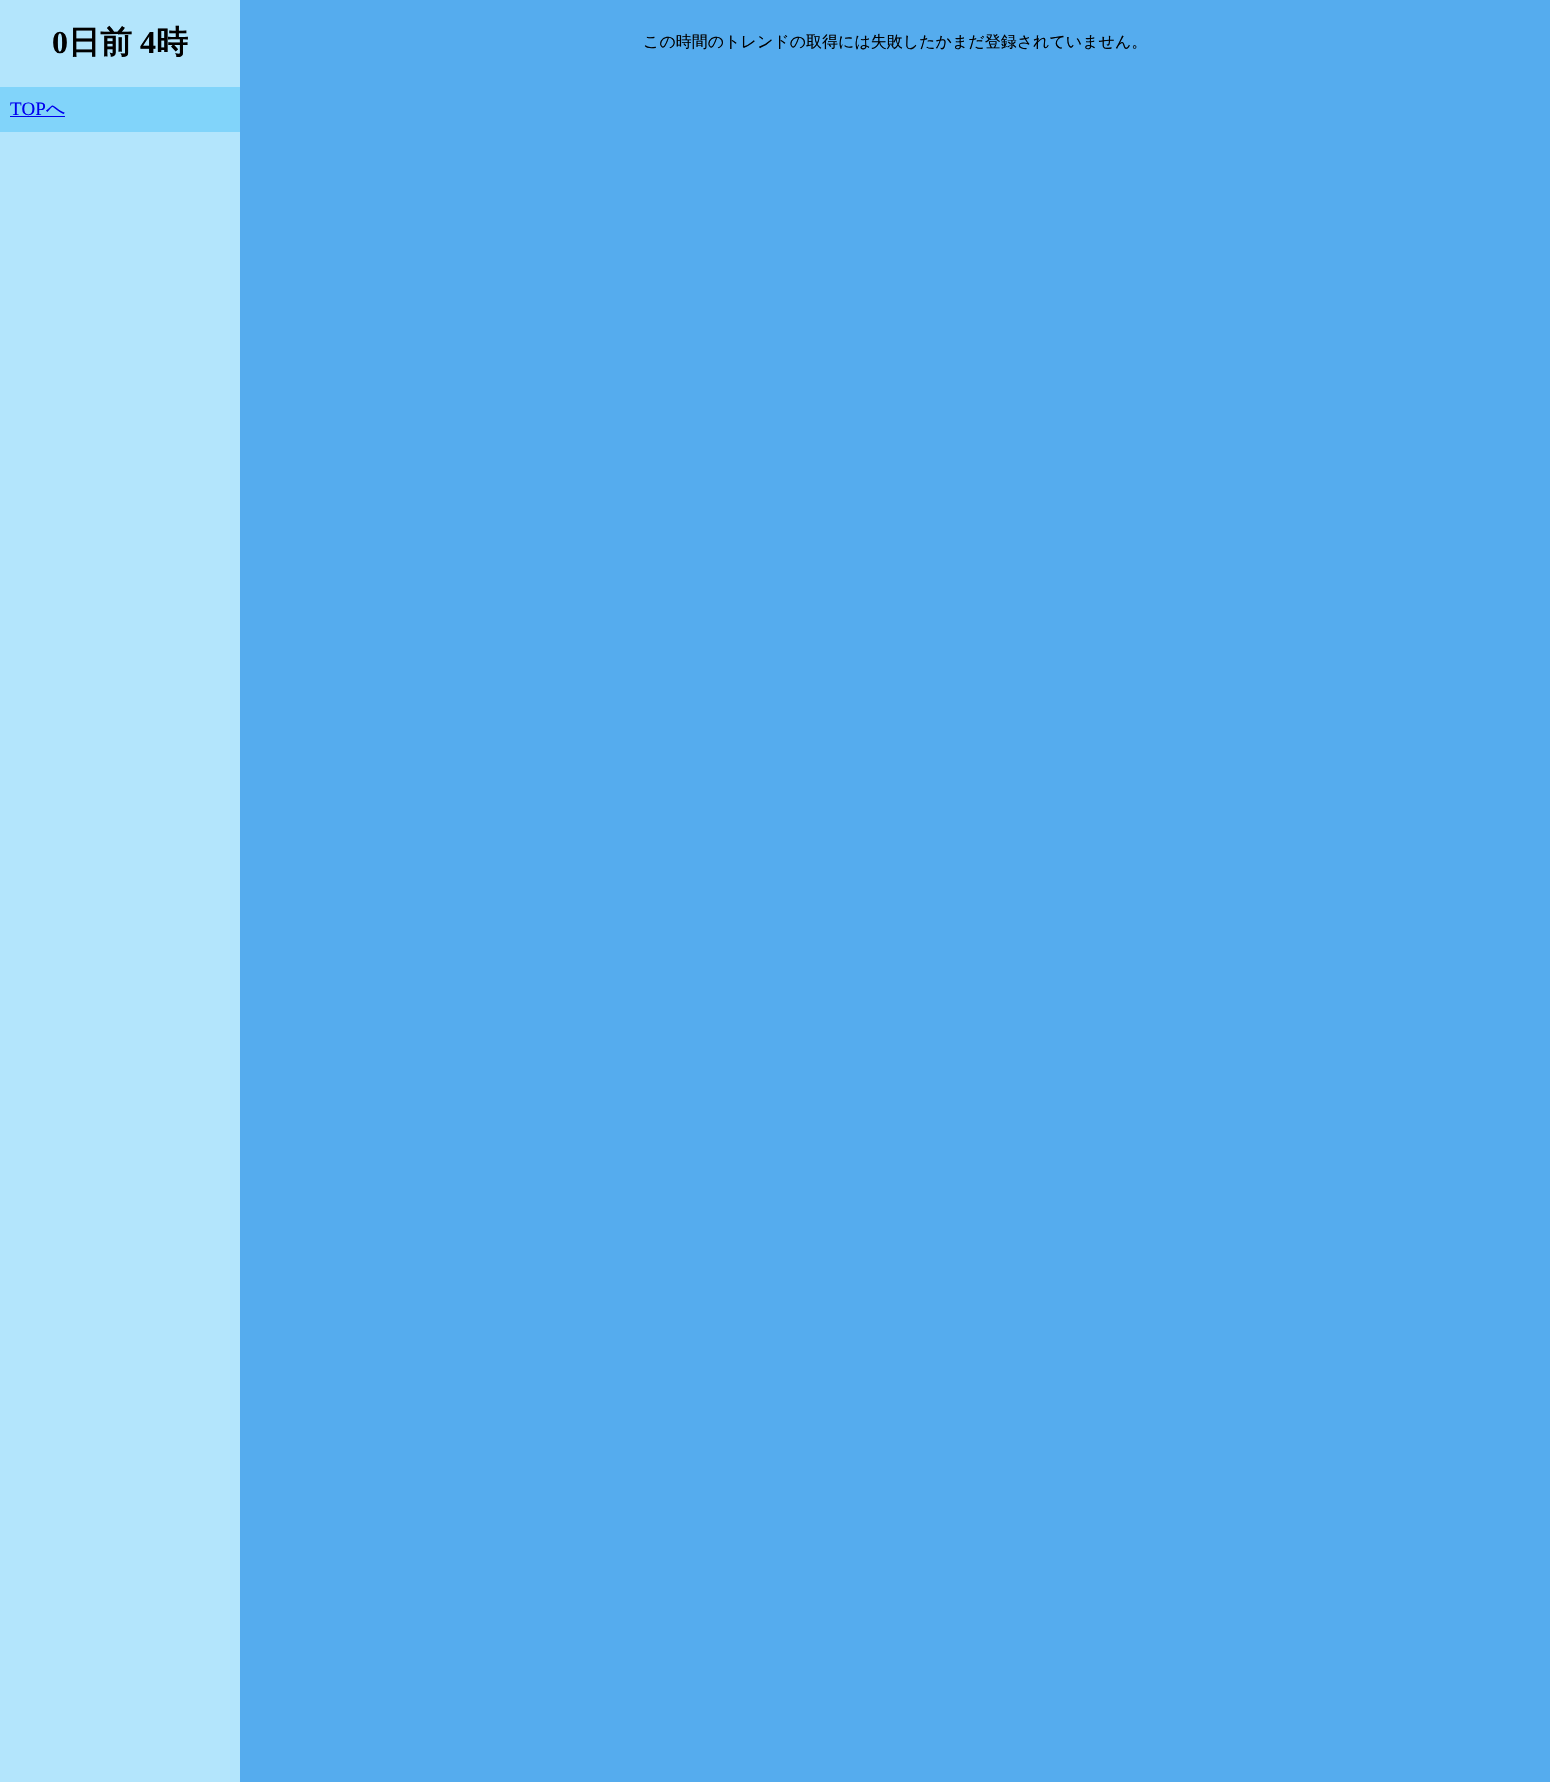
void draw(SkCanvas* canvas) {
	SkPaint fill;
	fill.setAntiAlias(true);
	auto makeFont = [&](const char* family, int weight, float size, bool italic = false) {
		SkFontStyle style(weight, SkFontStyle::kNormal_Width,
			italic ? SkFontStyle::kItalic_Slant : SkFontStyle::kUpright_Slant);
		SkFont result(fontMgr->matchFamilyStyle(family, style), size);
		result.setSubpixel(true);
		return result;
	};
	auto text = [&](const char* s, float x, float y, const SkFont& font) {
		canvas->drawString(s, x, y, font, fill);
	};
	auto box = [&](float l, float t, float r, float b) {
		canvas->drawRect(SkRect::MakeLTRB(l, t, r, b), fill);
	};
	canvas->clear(0xFFB3E5FC);
	fill.setColor(0xFF81D4FA);
	box(0, 87, 240, 132);
	fill.setColor(0xFF0000EE);
	box(10, 116, 65, 117);
	fill.setColor(0xFF55ACEE);
	box(240, 0, 1550, 1782);
	auto font1 = makeFont("Liberation Serif", 700, 32);
	fill.setColor(0xFF000000);
	text("0", 52, 53, font1);
	auto font2 = makeFont("WenQuanYi Zen Hei", 700, 32);
	text("日前", 68, 53, font2);
	text("4", 140, 53, font1);
	text("時", 156, 53, font2);
	auto font3 = makeFont("Liberation Serif", 400, 19);
	fill.setColor(0xFF0000EE);
	text("TOP", 10, 115, font3);
	auto font4 = makeFont("WenQuanYi Zen Hei", 500, 19);
	text("へ", 46, 115, font4);
	auto font5 = makeFont("WenQuanYi Zen Hei", 500, 16);
	fill.setColor(0xFF000000);
	text("この時間のトレンドの取得には失敗したかまだ登録されていません。", 643, 47, font5);
}
